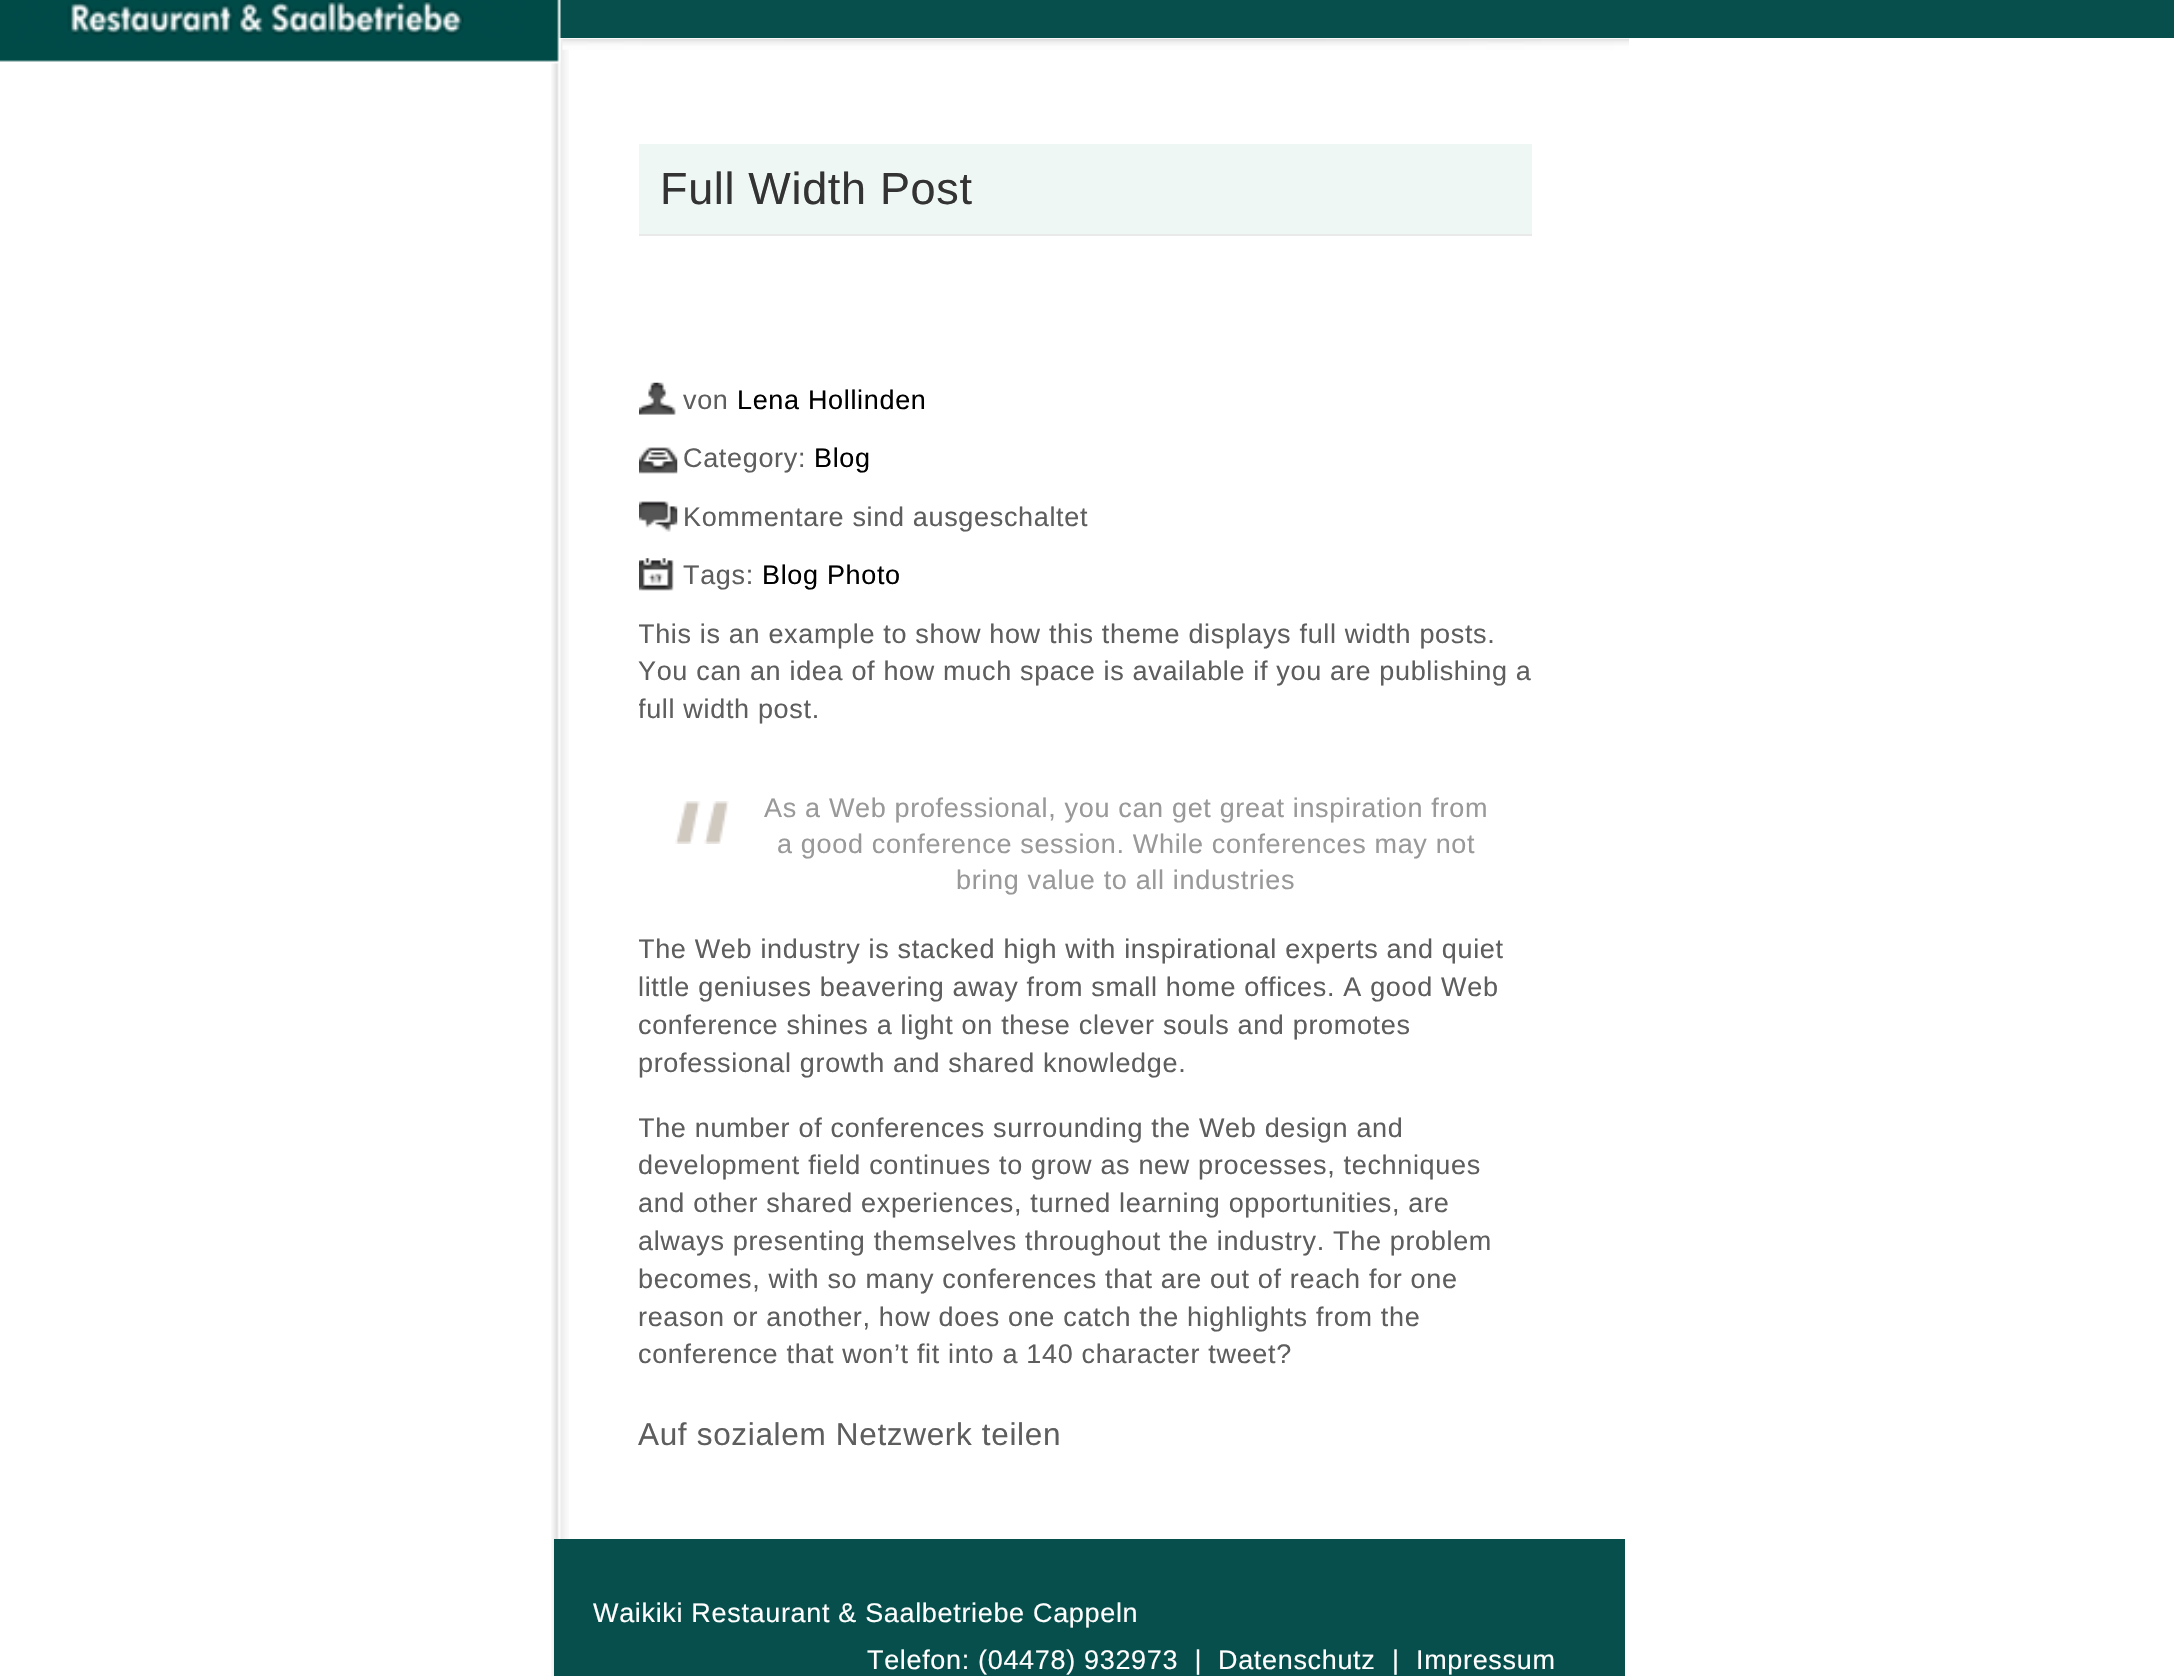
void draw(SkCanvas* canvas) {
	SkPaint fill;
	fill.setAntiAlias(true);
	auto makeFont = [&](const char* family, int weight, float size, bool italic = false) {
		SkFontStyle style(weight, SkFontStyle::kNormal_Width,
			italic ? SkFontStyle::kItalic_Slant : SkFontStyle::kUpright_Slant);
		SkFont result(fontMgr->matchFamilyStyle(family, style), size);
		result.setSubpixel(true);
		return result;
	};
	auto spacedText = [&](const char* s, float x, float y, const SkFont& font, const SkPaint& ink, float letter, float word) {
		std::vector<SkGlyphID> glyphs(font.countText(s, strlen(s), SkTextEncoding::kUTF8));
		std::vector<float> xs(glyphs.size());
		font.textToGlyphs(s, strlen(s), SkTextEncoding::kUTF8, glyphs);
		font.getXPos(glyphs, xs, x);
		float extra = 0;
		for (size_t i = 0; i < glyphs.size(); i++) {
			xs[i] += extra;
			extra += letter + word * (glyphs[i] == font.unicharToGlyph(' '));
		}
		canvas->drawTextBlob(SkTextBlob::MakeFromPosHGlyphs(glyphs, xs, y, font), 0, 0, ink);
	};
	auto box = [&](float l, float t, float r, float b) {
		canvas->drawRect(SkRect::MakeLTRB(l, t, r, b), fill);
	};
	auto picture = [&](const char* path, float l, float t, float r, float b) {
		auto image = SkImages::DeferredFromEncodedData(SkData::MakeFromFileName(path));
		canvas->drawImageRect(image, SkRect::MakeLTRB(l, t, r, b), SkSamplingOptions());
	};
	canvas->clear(0xFFFFFFFF);
	fill.setColor(0xFF064F4D);
	box(559, 0, 2174, 38);
	picture("image1.png", 551, 38, 569, 1676);
	picture("image0.png", 0, 0, 561, 64);
	picture("image2.png", 562, 38, 1629, 50);
	fill.setColor(0xFFEFF7F4);
	box(639, 144, 1532, 234);
	fill.setColor(0xFFE9E9E9);
	box(639, 234, 1532, 236);
	picture("image3.png", 639, 382, 676, 415);
	picture("image4.png", 639, 447, 678, 474);
	picture("image5.png", 639, 501, 678, 532);
	picture("image6.png", 639, 558, 674, 591);
	picture("image7.png", 675, 801, 729, 844);
	fill.setColor(0xFF064F4D);
	box(554, 1539, 1625, 1676);
	auto font1 = makeFont("Liberation Sans", 400, 45);
	fill.setColor(0xFF333333);
	spacedText("Full Width Post", 660, 204, font1, fill, 0.67f, 0);
	auto font2 = makeFont("Liberation Sans", 400, 27);
	fill.setColor(0xFF5E5E5E);
	spacedText("von", 683, 409, font2, fill, 0.67f, 0);
	fill.setColor(0xFF000000);
	spacedText("Lena Hollinden", 737, 409, font2, fill, 0.67f, 0);
	fill.setColor(0xFF5E5E5E);
	spacedText("Category:", 683, 467, font2, fill, 0.67f, 0);
	fill.setColor(0xFF000000);
	spacedText("Blog", 814, 467, font2, fill, 0.67f, 0);
	fill.setColor(0xFF5E5E5E);
	spacedText("Kommentare sind ausgeschaltet", 683, 526, font2, fill, 0.67f, 0);
	spacedText("Tags:", 683, 584, font2, fill, 0.67f, 0);
	fill.setColor(0xFF000000);
	spacedText("Blog Photo", 762, 584, font2, fill, 0.67f, 0);
	canvas->save();
	canvas->clipRect(SkRect::MakeLTRB(639, 617, 1532, 729));
	fill.setColor(0xFF5E5E5E);
	spacedText("This is an example to show how this theme displays full width posts.", 638, 643, font2, fill, 0.67f, 0);
	canvas->restore();
	spacedText("You can an idea of how much space is available if you are publishing a", 638, 680, font2, fill, 0.67f, 0);
	canvas->save();
	canvas->clipRect(SkRect::MakeLTRB(639, 617, 1532, 729));
	spacedText("full width post.", 638, 718, font2, fill, 0.67f, 0);
	canvas->restore();
	fill.setColor(0xFF999999);
	spacedText("As a Web professional, you can get great inspiration from", 764, 817, font2, fill, 0.67f, 0);
	spacedText("a good conference session. While conferences may not", 777, 853, font2, fill, 0.67f, 0);
	spacedText("bring value to all industries", 956, 889, font2, fill, 0.67f, 0);
	canvas->save();
	canvas->clipRect(SkRect::MakeLTRB(639, 932, 1532, 1082));
	fill.setColor(0xFF5E5E5E);
	spacedText("The Web industry is stacked high with inspirational experts and quiet", 638, 958, font2, fill, 0.67f, 0);
	canvas->restore();
	spacedText("little geniuses beavering away from small home offices. A good Web", 638, 996, font2, fill, 0.67f, 0);
	spacedText("conference shines a light on these clever souls and promotes", 638, 1034, font2, fill, 0.67f, 0);
	spacedText("professional growth and shared knowledge.", 638, 1072, font2, fill, 0.67f, 0);
	canvas->save();
	canvas->clipRect(SkRect::MakeLTRB(639, 1109, 1532, 1375));
	spacedText("The number of conferences surrounding the Web design and", 638, 1137, font2, fill, 0.67f, 0);
	canvas->restore();
	spacedText("development field continues to grow as new processes, techniques", 638, 1174, font2, fill, 0.67f, 0);
	spacedText("and other shared experiences, turned learning opportunities, are", 638, 1212, font2, fill, 0.67f, 0);
	spacedText("always presenting themselves throughout the industry. The problem", 638, 1250, font2, fill, 0.67f, 0);
	spacedText("becomes, with so many conferences that are out of reach for one", 638, 1288, font2, fill, 0.67f, 0);
	spacedText("reason or another, how does one catch the highlights from the", 638, 1326, font2, fill, 0.67f, 0);
	spacedText("conference that won’t fit into a 140 character tweet?", 638, 1363, font2, fill, 0.67f, 0);
	auto font3 = makeFont("Liberation Sans", 400, 31.5f);
	spacedText("Auf sozialem Netzwerk teilen", 638, 1445, font3, fill, 0.67f, 0);
	fill.setColor(0xFFFFFFFF);
	spacedText("Waikiki Restaurant & Saalbetriebe Cappeln", 593, 1622, font2, fill, 0.67f, 0);
	spacedText("Telefon: (04478) 932973  |", 867, 1669, font2, fill, 0.67f, 0);
	spacedText("Datenschutz", 1218, 1669, font2, fill, 0.67f, 0);
	spacedText("|", 1392, 1669, font2, fill, 0.67f, 0);
	spacedText("Impressum", 1416, 1669, font2, fill, 0.67f, 0);
}
